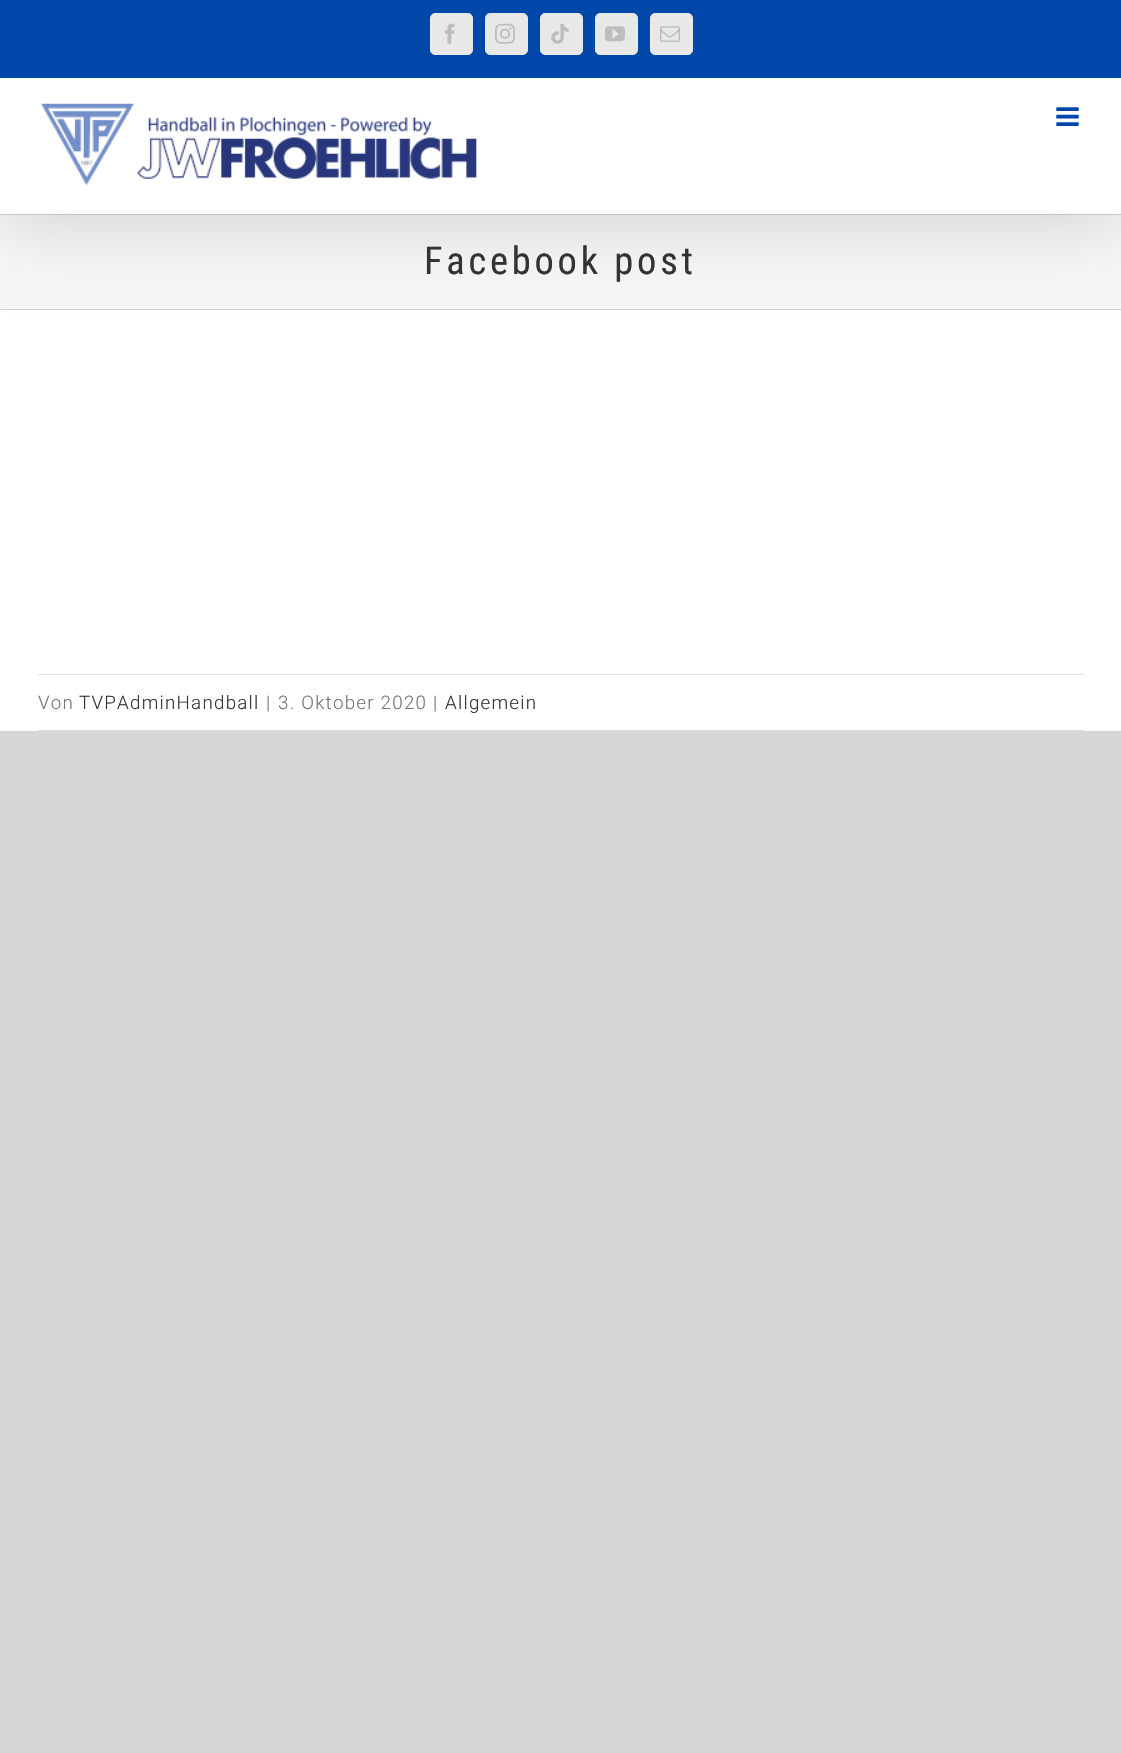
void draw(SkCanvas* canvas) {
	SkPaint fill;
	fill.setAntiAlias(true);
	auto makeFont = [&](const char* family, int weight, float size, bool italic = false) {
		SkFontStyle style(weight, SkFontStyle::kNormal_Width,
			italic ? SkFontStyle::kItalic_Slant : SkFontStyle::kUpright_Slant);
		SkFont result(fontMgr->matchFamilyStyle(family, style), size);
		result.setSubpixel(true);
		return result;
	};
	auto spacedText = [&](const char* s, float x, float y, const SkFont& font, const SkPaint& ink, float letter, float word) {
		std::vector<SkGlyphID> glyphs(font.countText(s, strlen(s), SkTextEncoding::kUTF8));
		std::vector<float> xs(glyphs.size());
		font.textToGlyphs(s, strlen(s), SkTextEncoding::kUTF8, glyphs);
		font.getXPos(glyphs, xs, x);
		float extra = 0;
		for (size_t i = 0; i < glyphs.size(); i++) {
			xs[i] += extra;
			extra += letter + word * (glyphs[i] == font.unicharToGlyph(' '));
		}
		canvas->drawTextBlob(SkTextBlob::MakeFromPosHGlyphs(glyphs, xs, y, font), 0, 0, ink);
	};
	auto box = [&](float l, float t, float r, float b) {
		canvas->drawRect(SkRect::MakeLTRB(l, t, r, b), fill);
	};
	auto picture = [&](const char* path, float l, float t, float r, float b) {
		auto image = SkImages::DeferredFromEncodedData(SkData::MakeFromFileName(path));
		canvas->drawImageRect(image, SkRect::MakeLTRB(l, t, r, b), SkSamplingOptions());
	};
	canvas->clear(0xFFD7D6D6);
	fill.setColor(0xFFFFFFFF);
	box(0, 310, 1121, 731);
	fill.setColor(0xFFF6F6F6);
	box(0, 215, 1121, 309);
	fill.setColor(0xFFD2D3D4);
	box(0, 214, 1121, 215);
	box(0, 309, 1121, 310);
	fill.setColor(0x24000000);
	fill.setMaskFilter(SkMaskFilter::MakeBlur(kNormal_SkBlurStyle, 31));
	canvas->drawRect(SkRect::MakeLTRB(3, 15, 1119, 224), fill);
	fill.setMaskFilter(nullptr);
	fill.setColor(0xFF0047AA);
	box(0, 0, 1121, 78);
	fill.setColor(0xFFFFFFFF);
	box(0, 78, 1121, 214);
	fill.setColor(0xFFE8E8E8);
	canvas->drawRoundRect(SkRect::MakeLTRB(430.5f, 13.5f, 472.5f, 54.5f), 4.5f, 4.5f, fill);
	fill.setStyle(SkPaint::kStroke_Style);
	fill.setStrokeWidth(1);
	canvas->drawRoundRect(SkRect::MakeLTRB(430.5f, 13.5f, 472.5f, 54.5f), 4.5f, 4.5f, fill);
	picture("image0.png", 445, 23, 455, 44);
	fill.setStyle(SkPaint::kFill_Style);
	canvas->drawRoundRect(SkRect::MakeLTRB(485.5f, 13.5f, 527.5f, 54.5f), 4.5f, 4.5f, fill);
	fill.setStyle(SkPaint::kStroke_Style);
	canvas->drawRoundRect(SkRect::MakeLTRB(485.5f, 13.5f, 527.5f, 54.5f), 4.5f, 4.5f, fill);
	picture("image1.png", 495, 23, 515, 44);
	fill.setStyle(SkPaint::kFill_Style);
	canvas->drawRoundRect(SkRect::MakeLTRB(540.5f, 13.5f, 582.5f, 54.5f), 4.5f, 4.5f, fill);
	fill.setStyle(SkPaint::kStroke_Style);
	canvas->drawRoundRect(SkRect::MakeLTRB(540.5f, 13.5f, 582.5f, 54.5f), 4.5f, 4.5f, fill);
	picture("image2.png", 551, 23, 569, 44);
	fill.setStyle(SkPaint::kFill_Style);
	canvas->drawRoundRect(SkRect::MakeLTRB(595.5f, 13.5f, 637.5f, 54.5f), 4.5f, 4.5f, fill);
	fill.setStyle(SkPaint::kStroke_Style);
	canvas->drawRoundRect(SkRect::MakeLTRB(595.5f, 13.5f, 637.5f, 54.5f), 4.5f, 4.5f, fill);
	picture("image3.png", 605, 26, 625, 42);
	fill.setStyle(SkPaint::kFill_Style);
	canvas->drawRoundRect(SkRect::MakeLTRB(650.5f, 13.5f, 692.5f, 54.5f), 4.5f, 4.5f, fill);
	fill.setStyle(SkPaint::kStroke_Style);
	canvas->drawRoundRect(SkRect::MakeLTRB(650.5f, 13.5f, 692.5f, 54.5f), 4.5f, 4.5f, fill);
	picture("image4.png", 660, 26, 680, 42);
	picture("image5.png", 41, 103, 477, 186);
	picture("image6.png", 1056, 107, 1079, 126);
	fill.setStyle(SkPaint::kFill_Style);
	fill.setColor(0xFFE0DEDE);
	box(38, 674, 1084, 675);
	box(38, 730, 1084, 731);
	auto font1 = makeFont("Roboto Condensed", 400, 38.5f);
	fill.setColor(0xFF333333);
	spacedText("Facebook post", 424, 274, font1, fill, 3.75f, 0);
	auto font2 = makeFont("Roboto", 300, 18.75f);
	fill.setColor(0xFF747474);
	spacedText("Von", 38, 709, font2, fill, 1.25f, 0);
	fill.setColor(0xFF333333);
	spacedText("TVPAdminHandball", 79, 709, font2, fill, 1.25f, 0);
	fill.setColor(0xFF747474);
	spacedText("|", 266, 709, font2, fill, 1.25f, 0);
	spacedText("3. Oktober 2020", 278, 709, font2, fill, 1.25f, 0);
	spacedText("|", 433, 709, font2, fill, 1.25f, 0);
	fill.setColor(0xFF333333);
	spacedText("Allgemein", 445, 709, font2, fill, 1.25f, 0);
}
